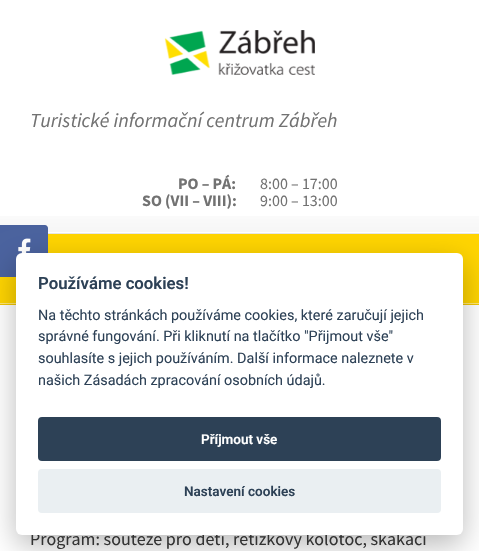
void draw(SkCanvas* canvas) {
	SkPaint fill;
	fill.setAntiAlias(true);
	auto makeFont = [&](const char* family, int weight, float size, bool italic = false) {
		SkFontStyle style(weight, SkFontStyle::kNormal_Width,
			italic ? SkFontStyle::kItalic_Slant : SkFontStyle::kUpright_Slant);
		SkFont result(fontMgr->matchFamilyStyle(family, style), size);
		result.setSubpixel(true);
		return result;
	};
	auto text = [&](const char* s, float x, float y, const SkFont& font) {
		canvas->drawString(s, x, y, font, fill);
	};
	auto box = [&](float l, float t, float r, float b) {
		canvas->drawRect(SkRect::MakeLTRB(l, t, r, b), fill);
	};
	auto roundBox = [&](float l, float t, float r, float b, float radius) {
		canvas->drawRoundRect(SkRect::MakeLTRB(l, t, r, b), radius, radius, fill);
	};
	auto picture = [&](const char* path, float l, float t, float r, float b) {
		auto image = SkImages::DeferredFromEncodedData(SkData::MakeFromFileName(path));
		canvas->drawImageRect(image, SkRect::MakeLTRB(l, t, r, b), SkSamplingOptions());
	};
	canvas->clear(0xFFFFFFFF);
	picture("image1.png", 0, 216, 479, 234);
	fill.setColor(0xFFFFD400);
	box(0, 234, 479, 303);
	fill.setColor(0xFF4A629E);
	canvas->drawPath(SkPathBuilder().moveTo(0, 225).lineTo(45, 225).cubicTo(46.5f, 225, 48, 226.5f, 48, 228).lineTo(48, 274).cubicTo(48, 275.5f, 46.5f, 277, 45, 277).lineTo(0, 277).close().detach(), fill);
	picture("image0.png", 18, 238, 31, 254);
	picture("image2.png", 164, 30, 315, 75);
	picture("image3.png", 0, 303, 479, 305);
	fill.setColor(0x47020203);
	fill.setMaskFilter(SkMaskFilter::MakeBlur(kNormal_SkBlurStyle, 15));
	canvas->drawRoundRect(SkRect::MakeLTRB(16, 263, 463, 545), 6, 6, fill);
	fill.setMaskFilter(nullptr);
	auto font1 = makeFont("Source Sans Pro", 400, 20, true);
	fill.setColor(0xFF727272);
	text("Turistické informační centrum Zábřeh", 30, 127, font1);
	auto font2 = makeFont("Source Sans Pro", 700, 16);
	text("PO – PÁ:", 178, 189, font2);
	auto font3 = makeFont("Source Sans Pro", 400, 16);
	text("8:00 – 17:00", 260, 189, font3);
	text("SO (VII – VIII):", 142, 206, font2);
	text("9:00 – 13:00", 260, 206, font3);
	auto font4 = makeFont("Source Sans Pro", 400, 18);
	fill.setColor(0xFF333333);
	text("Program: soutěže pro děti, řetízkový kolotoč, skákací", 30, 545, font4);
	fill.setColor(0xFFFFFFFF);
	roundBox(16, 253, 463, 535, 6);
	auto font5 = makeFont("Roboto", 600, 16.75f);
	fill.setColor(0xFF2D4156);
	text("Používáme cookies!", 38, 289, font5);
	auto font6 = makeFont("Roboto", 400, 14.4f);
	text("Na těchto stránkách používáme cookies, které zaručují jejich", 38, 320, font6);
	text("správné fungování. Při kliknutí na tlačítko \"Přijmout vše\"", 38, 341, font6);
	text("souhlasíte s jejich používáním. Další informace naleznete v", 38, 363, font6);
	text("našich Zásadách zpracování osobních údajů.", 38, 385, font6);
	roundBox(38, 417, 441, 461, 4);
	auto font7 = makeFont("Roboto", 600, 13.5f);
	fill.setColor(0xFFFFFFFF);
	text("Příjmout vše", 201, 444, font7);
	fill.setColor(0xFFEAEFF2);
	roundBox(38, 469, 441, 513, 4);
	fill.setColor(0xFF2D4156);
	text("Nastavení cookies", 184, 496, font7);
}
